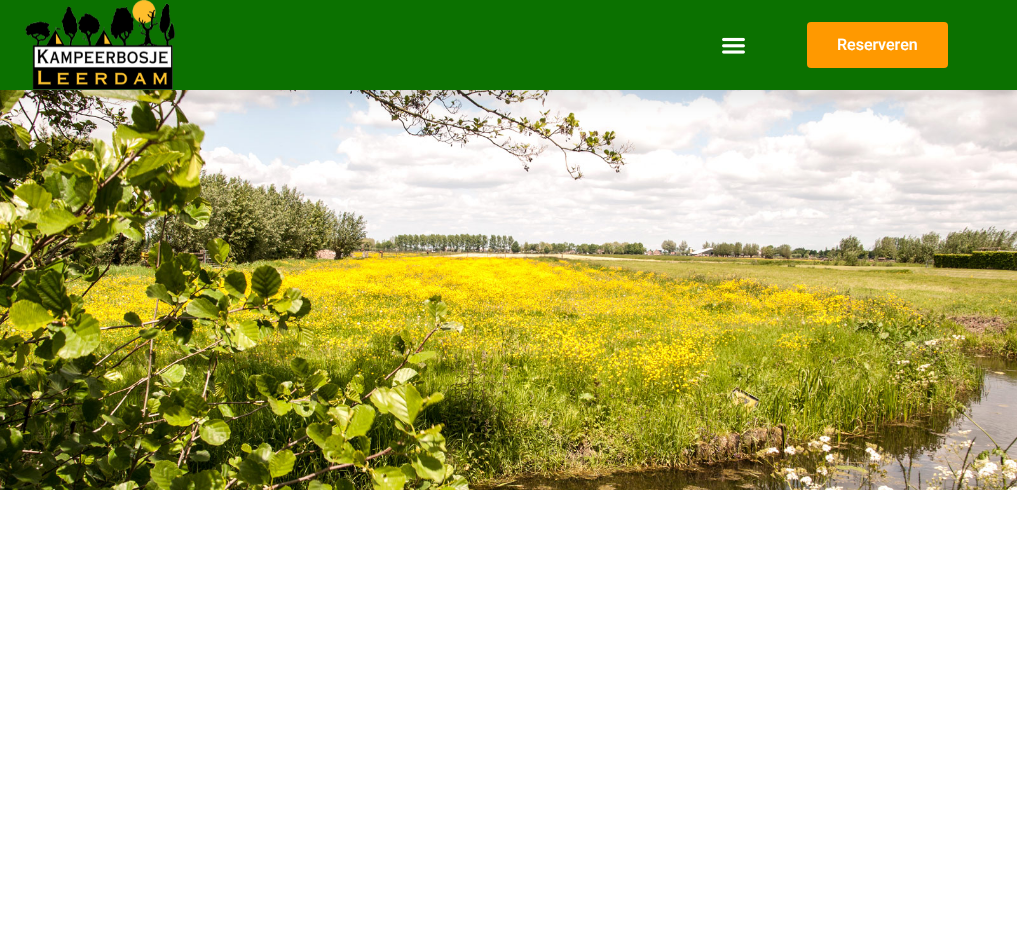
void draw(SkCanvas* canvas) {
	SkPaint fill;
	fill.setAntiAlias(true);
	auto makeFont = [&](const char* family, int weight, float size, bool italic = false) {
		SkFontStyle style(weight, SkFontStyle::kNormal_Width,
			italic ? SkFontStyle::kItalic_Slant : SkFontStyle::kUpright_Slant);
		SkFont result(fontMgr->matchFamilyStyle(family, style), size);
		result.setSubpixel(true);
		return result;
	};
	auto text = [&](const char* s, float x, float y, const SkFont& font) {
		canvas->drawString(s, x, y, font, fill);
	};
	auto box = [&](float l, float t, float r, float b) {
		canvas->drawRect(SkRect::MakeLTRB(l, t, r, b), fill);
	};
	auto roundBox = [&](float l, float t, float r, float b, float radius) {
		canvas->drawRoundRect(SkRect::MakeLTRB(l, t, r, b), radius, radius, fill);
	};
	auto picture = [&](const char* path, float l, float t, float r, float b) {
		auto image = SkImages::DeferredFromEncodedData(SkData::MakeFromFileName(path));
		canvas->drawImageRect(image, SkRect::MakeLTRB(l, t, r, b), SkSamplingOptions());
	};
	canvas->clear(0xFFFFFFFF);
	picture("image2.png", 0, 90, 1017, 490);
	fill.setColor(0x1A000000);
	fill.setMaskFilter(SkMaskFilter::MakeBlur(kNormal_SkBlurStyle, 10));
	canvas->drawRect(SkRect::MakeLTRB(0, 10, 1017, 100), fill);
	fill.setMaskFilter(nullptr);
	fill.setColor(0xFF0B7100);
	box(0, 0, 1017, 90);
	picture("image0.png", 25, 0, 175, 90);
	picture("image1.png", 722, 37, 745, 54);
	fill.setColor(0xFFFF9900);
	roundBox(807, 22, 948, 68, 4);
	auto font1 = makeFont("Roboto", 500, 16);
	fill.setColor(0xFFFFFFFF);
	text("Reserveren", 837, 50, font1);
}
